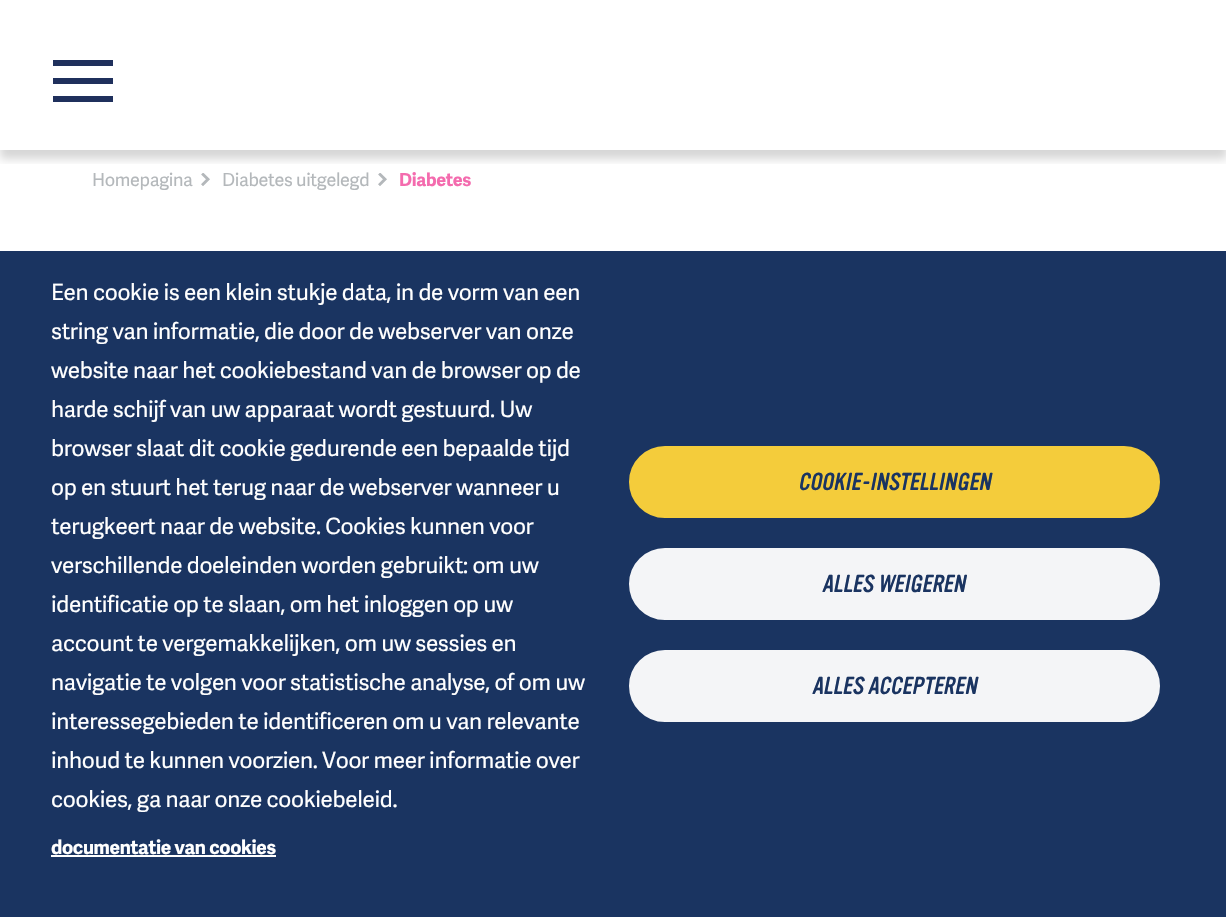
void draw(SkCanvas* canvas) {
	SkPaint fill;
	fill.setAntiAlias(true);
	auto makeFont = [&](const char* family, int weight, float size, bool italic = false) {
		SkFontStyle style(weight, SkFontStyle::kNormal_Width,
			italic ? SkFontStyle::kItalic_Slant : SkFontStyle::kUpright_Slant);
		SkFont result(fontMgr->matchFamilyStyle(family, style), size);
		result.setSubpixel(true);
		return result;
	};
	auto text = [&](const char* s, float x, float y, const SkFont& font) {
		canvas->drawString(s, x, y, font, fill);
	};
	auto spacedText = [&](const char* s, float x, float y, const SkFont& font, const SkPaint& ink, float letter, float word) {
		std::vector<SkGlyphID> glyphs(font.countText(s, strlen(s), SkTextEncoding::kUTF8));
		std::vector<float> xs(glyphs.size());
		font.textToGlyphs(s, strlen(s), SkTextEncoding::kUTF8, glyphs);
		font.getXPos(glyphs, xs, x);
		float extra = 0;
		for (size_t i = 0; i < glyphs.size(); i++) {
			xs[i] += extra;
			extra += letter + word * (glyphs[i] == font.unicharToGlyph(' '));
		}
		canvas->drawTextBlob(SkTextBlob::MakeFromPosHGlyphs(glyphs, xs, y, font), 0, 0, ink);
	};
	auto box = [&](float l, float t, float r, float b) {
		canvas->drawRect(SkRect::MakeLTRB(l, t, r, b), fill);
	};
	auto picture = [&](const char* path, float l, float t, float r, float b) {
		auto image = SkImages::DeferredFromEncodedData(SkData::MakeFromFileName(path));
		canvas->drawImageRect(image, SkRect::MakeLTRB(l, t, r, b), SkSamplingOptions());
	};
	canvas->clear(0xFFFFFFFF);
	picture("image0.png", 201, 173, 210, 186);
	picture("image0.png", 378, 173, 387, 186);
	canvas->save();
	canvas->clipRect(SkRect::MakeLTRB(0, 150, 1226, 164));
	fill.setColor(0x29000000);
	fill.setMaskFilter(SkMaskFilter::MakeBlur(kNormal_SkBlurStyle, 4.5f));
	canvas->drawRect(SkRect::MakeLTRB(0, 9, 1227, 159), fill);
	fill.setMaskFilter(nullptr);
	canvas->restore();
	fill.setColor(0xFF1F305C);
	box(53, 60, 113, 66);
	box(53, 78, 113, 84);
	box(53, 96, 113, 102);
	fill.setColor(0xFF1A3461);
	box(0, 251, 1226, 917);
	fill.setColor(0xFFFFFFFF);
	box(51, 855, 276, 857);
	fill.setColor(0xFFF4CC3B);
	canvas->drawRoundRect(SkRect::MakeLTRB(630.5f, 447.5f, 1158.5f, 516.5f), 34.5f, 34.5f, fill);
	fill.setStyle(SkPaint::kStroke_Style);
	fill.setStrokeWidth(3);
	canvas->drawRoundRect(SkRect::MakeLTRB(630.5f, 447.5f, 1158.5f, 516.5f), 34.5f, 34.5f, fill);
	fill.setStyle(SkPaint::kFill_Style);
	fill.setColor(0xFFF4F5F7);
	canvas->drawRoundRect(SkRect::MakeLTRB(630.5f, 549.5f, 1158.5f, 618.5f), 34.5f, 34.5f, fill);
	fill.setStyle(SkPaint::kStroke_Style);
	canvas->drawRoundRect(SkRect::MakeLTRB(630.5f, 549.5f, 1158.5f, 618.5f), 34.5f, 34.5f, fill);
	fill.setStyle(SkPaint::kFill_Style);
	canvas->drawRoundRect(SkRect::MakeLTRB(630.5f, 651.5f, 1158.5f, 720.5f), 34.5f, 34.5f, fill);
	fill.setStyle(SkPaint::kStroke_Style);
	canvas->drawRoundRect(SkRect::MakeLTRB(630.5f, 651.5f, 1158.5f, 720.5f), 34.5f, 34.5f, fill);
	auto font1 = makeFont("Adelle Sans", 400, 18);
	fill.setStyle(SkPaint::kFill_Style);
	fill.setColor(0xFFB4B8BB);
	spacedText("Homepagina", 92, 186, font1, fill, -0.33f, 0);
	spacedText("Diabetes uitgelegd", 222, 186, font1, fill, -0.33f, 0);
	auto font2 = makeFont("Adelle Sans", 700, 18);
	fill.setColor(0xFFF46BAE);
	spacedText("Diabetes", 399, 186, font2, fill, -0.33f, 0);
	auto font3 = makeFont("Adelle Sans", 400, 22.5f);
	fill.setColor(0xFFFFFFFF);
	spacedText("Een cookie is een klein stukje data, in de vorm van een", 51, 300, font3, fill, -0.33f, 0);
	spacedText("string van informatie, die door de webserver van onze", 51, 339, font3, fill, -0.33f, 0);
	spacedText("website naar het cookiebestand van de browser op de", 51, 378, font3, fill, -0.33f, 0);
	spacedText("harde schijf van uw apparaat wordt gestuurd. Uw", 51, 417, font3, fill, -0.33f, 0);
	spacedText("browser slaat dit cookie gedurende een bepaalde tijd", 51, 456, font3, fill, -0.33f, 0);
	spacedText("op en stuurt het terug naar de webserver wanneer u", 51, 495, font3, fill, -0.33f, 0);
	spacedText("terugkeert naar de website. Cookies kunnen voor", 51, 534, font3, fill, -0.33f, 0);
	spacedText("verschillende doeleinden worden gebruikt: om uw", 51, 573, font3, fill, -0.33f, 0);
	spacedText("identificatie op te slaan, om het inloggen op uw", 51, 612, font3, fill, -0.33f, 0);
	spacedText("account te vergemakkelijken, om uw sessies en", 51, 651, font3, fill, -0.33f, 0);
	spacedText("navigatie te volgen voor statistische analyse, of om uw", 51, 690, font3, fill, -0.33f, 0);
	spacedText("interessegebieden te identificeren om u van relevante", 51, 729, font3, fill, -0.33f, 0);
	spacedText("inhoud te kunnen voorzien. Voor meer informatie over", 51, 768, font3, fill, -0.33f, 0);
	spacedText("cookies, ga naar onze cookiebeleid.", 51, 807, font3, fill, -0.33f, 0);
	auto font4 = makeFont("Adelle Sans", 700, 19.1f);
	spacedText("documentatie van cookies", 51, 854, font4, fill, -0.33f, 0);
	auto font5 = makeFont("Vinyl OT", 400, 24, true);
	fill.setColor(0xFF1A3461);
	text("COOKIE-INSTELLINGEN", 798, 490, font5);
	text("ALLES WEIGEREN", 822, 592, font5);
	text("ALLES ACCEPTEREN", 812, 694, font5);
}
